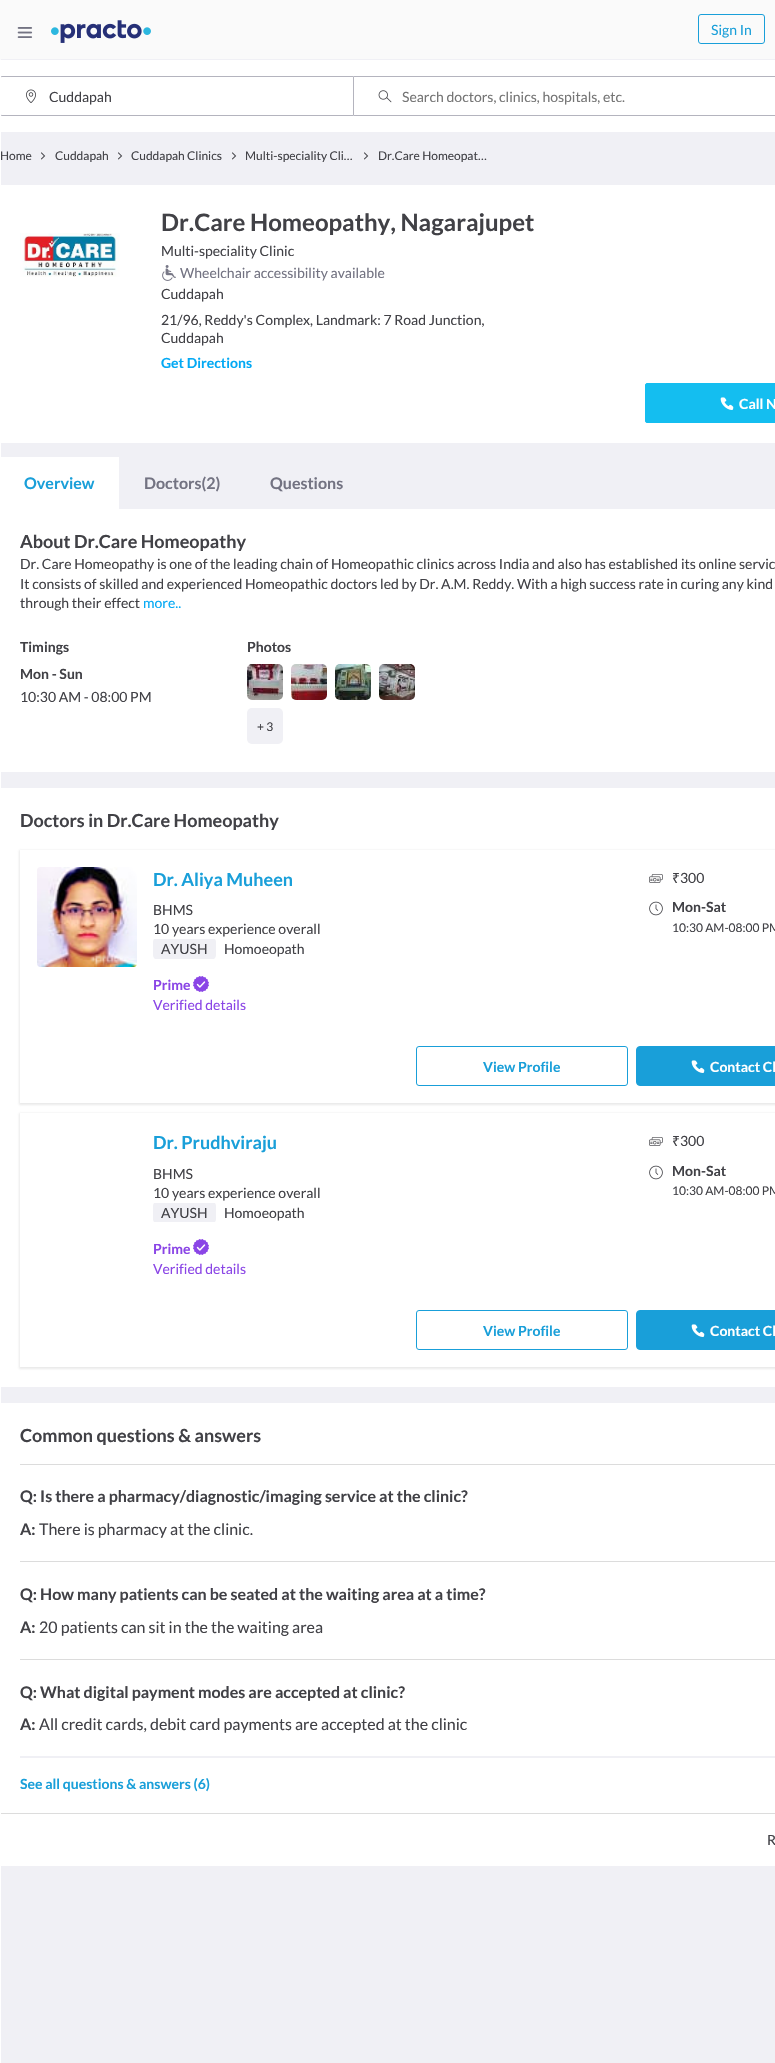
void draw(SkCanvas* canvas) {
	SkPaint fill;
	fill.setAntiAlias(true);
	auto makeFont = [&](const char* family, int weight, float size, bool italic = false) {
		SkFontStyle style(weight, SkFontStyle::kNormal_Width,
			italic ? SkFontStyle::kItalic_Slant : SkFontStyle::kUpright_Slant);
		SkFont result(fontMgr->matchFamilyStyle(family, style), size);
		result.setSubpixel(true);
		return result;
	};
	auto text = [&](const char* s, float x, float y, const SkFont& font) {
		canvas->drawString(s, x, y, font, fill);
	};
	auto box = [&](float l, float t, float r, float b) {
		canvas->drawRect(SkRect::MakeLTRB(l, t, r, b), fill);
	};
	auto roundBox = [&](float l, float t, float r, float b, float radius) {
		canvas->drawRoundRect(SkRect::MakeLTRB(l, t, r, b), radius, radius, fill);
	};
	auto picture = [&](const char* path, float l, float t, float r, float b) {
		auto image = SkImages::DeferredFromEncodedData(SkData::MakeFromFileName(path));
		canvas->drawImageRect(image, SkRect::MakeLTRB(l, t, r, b), SkSamplingOptions());
	};
	canvas->clear(0xFFF0F0F5);
	fill.setColor(0xFFFAFAFA);
	box(1, 0, 775, 59);
	fill.setColor(0xFFFFFFFF);
	box(1, 60, 775, 132);
	fill.setStyle(SkPaint::kStroke_Style);
	fill.setStrokeWidth(1);
	fill.setColor(0xFFB4B4BE);
	canvas->drawPath(SkPathBuilder().moveTo(2, 76.5f).lineTo(353.5f, 76.5f).lineTo(353.5f, 115.5f).lineTo(2, 115.5f).cubicTo(1, 115.5f, 0.5f, 115, 0.5f, 114).lineTo(0.5f, 78).cubicTo(0.5f, 77, 1, 76.5f, 2, 76.5f).close().detach(), fill);
	fill.setStyle(SkPaint::kFill_Style);
	fill.setColor(0xFFDCDCDC);
	box(0, 1813, 775, 1814);
	fill.setColor(0xFFFFFFFF);
	box(0, 60, 1, 2063);
	fill.setColor(0xFFFAFAFA);
	box(0, 0, 1, 60);
	picture("image0.png", 17, 27, 33, 38);
	picture("image1.png", 51, 20, 151, 43);
	fill.setStyle(SkPaint::kStroke_Style);
	fill.setColor(0xFF199FD9);
	canvas->drawRoundRect(SkRect::MakeLTRB(698.5f, 14.5f, 764.5f, 43.5f), 2.5f, 2.5f, fill);
	picture("image2.png", 26, 89, 36, 103);
	picture("image3.png", 378, 90, 392, 103);
	fill.setStyle(SkPaint::kFill_Style);
	fill.setColor(0xFFB4B4BE);
	box(354, 76, 775, 77);
	box(354, 115, 775, 116);
	picture("image4.png", 41, 152, 46, 160);
	picture("image4.png", 118, 152, 123, 160);
	picture("image4.png", 232, 152, 237, 160);
	picture("image4.png", 364, 152, 369, 160);
	fill.setColor(0xFFFFFFFF);
	box(1, 185, 775, 443);
	picture("image5.png", 20, 233, 120, 277);
	picture("image6.png", 162, 265, 176, 281);
	fill.setColor(0xFF14BEF0);
	canvas->drawRoundRect(SkRect::MakeLTRB(645.5f, 383.5f, 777.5f, 422.5f), 1.5f, 1.5f, fill);
	fill.setStyle(SkPaint::kStroke_Style);
	canvas->drawRoundRect(SkRect::MakeLTRB(645.5f, 383.5f, 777.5f, 422.5f), 1.5f, 1.5f, fill);
	picture("image7.png", 720, 397, 734, 410);
	fill.setStyle(SkPaint::kFill_Style);
	fill.setColor(0xFFFFFFFF);
	box(1, 457, 119, 509);
	box(1, 509, 775, 772);
	picture("image8.png", 247, 664, 283, 700);
	picture("image9.png", 291, 664, 327, 700);
	picture("image10.png", 335, 664, 371, 700);
	picture("image11.png", 379, 664, 415, 700);
	fill.setColor(0xFFF0F0F5);
	roundBox(247, 708, 283, 744, 5);
	fill.setColor(0xFFFFFFFF);
	box(1, 788, 775, 1387);
	canvas->save();
	canvas->clipPath(SkPathBuilder(SkPathFillType::kEvenOdd).moveTo(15, 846).lineTo(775, 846).lineTo(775, 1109).lineTo(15, 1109).close().moveTo(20, 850).lineTo(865, 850).lineTo(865, 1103).lineTo(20, 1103).close().detach(), true);
	fill.setColor(0x246D6D6D);
	fill.setMaskFilter(SkMaskFilter::MakeBlur(kNormal_SkBlurStyle, 1));
	canvas->drawRect(SkRect::MakeLTRB(19, 850, 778, 1105), fill);
	fill.setMaskFilter(nullptr);
	canvas->restore();
	picture("image12.png", 37, 867, 137, 967);
	canvas->save();
	canvas->clipRect(SkRect::MakeLTRB(153, 939, 593, 959));
	fill.setColor(0xFFF0F0F5);
	roundBox(153, 937, 216, 960, 5);
	canvas->restore();
	picture("image13.png", 193, 976, 209, 992);
	picture("image14.png", 649, 874, 663, 883);
	picture("image15.png", 649, 901, 663, 916);
	fill.setStyle(SkPaint::kStroke_Style);
	fill.setColor(0xFF199FD9);
	canvas->drawRoundRect(SkRect::MakeLTRB(416.5f, 1046.5f, 627.5f, 1085.5f), 2.5f, 2.5f, fill);
	fill.setStyle(SkPaint::kFill_Style);
	canvas->drawRoundRect(SkRect::MakeLTRB(636.5f, 1046.5f, 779.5f, 1085.5f), 3.5f, 3.5f, fill);
	fill.setStyle(SkPaint::kStroke_Style);
	canvas->drawRoundRect(SkRect::MakeLTRB(636.5f, 1046.5f, 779.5f, 1085.5f), 3.5f, 3.5f, fill);
	picture("image16.png", 691, 1060, 705, 1073);
	canvas->save();
	canvas->clipPath(SkPathBuilder(SkPathFillType::kEvenOdd).moveTo(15, 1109).lineTo(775, 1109).lineTo(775, 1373).lineTo(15, 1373).close().moveTo(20, 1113).lineTo(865, 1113).lineTo(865, 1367).lineTo(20, 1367).close().detach(), true);
	fill.setStyle(SkPaint::kFill_Style);
	fill.setColor(0x246D6D6D);
	fill.setMaskFilter(SkMaskFilter::MakeBlur(kNormal_SkBlurStyle, 1));
	canvas->drawRect(SkRect::MakeLTRB(19, 1113, 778, 1369), fill);
	fill.setMaskFilter(nullptr);
	canvas->restore();
	canvas->save();
	canvas->clipRect(SkRect::MakeLTRB(153, 1203, 593, 1222));
	fill.setColor(0xFFF0F0F5);
	roundBox(153, 1201, 216, 1224, 5);
	canvas->restore();
	picture("image13.png", 193, 1239, 209, 1255);
	picture("image14.png", 649, 1137, 663, 1146);
	picture("image15.png", 649, 1165, 663, 1180);
	fill.setStyle(SkPaint::kStroke_Style);
	fill.setColor(0xFF199FD9);
	canvas->drawRoundRect(SkRect::MakeLTRB(416.5f, 1310.5f, 627.5f, 1349.5f), 2.5f, 2.5f, fill);
	fill.setStyle(SkPaint::kFill_Style);
	canvas->drawRoundRect(SkRect::MakeLTRB(636.5f, 1310.5f, 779.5f, 1349.5f), 3.5f, 3.5f, fill);
	fill.setStyle(SkPaint::kStroke_Style);
	canvas->drawRoundRect(SkRect::MakeLTRB(636.5f, 1310.5f, 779.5f, 1349.5f), 3.5f, 3.5f, fill);
	picture("image16.png", 691, 1324, 705, 1337);
	fill.setStyle(SkPaint::kFill_Style);
	fill.setColor(0xFFFFFFFF);
	box(1, 1403, 775, 1813);
	fill.setColor(0xFFDCDCDC);
	box(20, 1464, 775, 1465);
	box(20, 1561, 775, 1562);
	box(20, 1659, 775, 1660);
	fill.setColor(0xFFF0F0F5);
	box(20, 1756, 775, 1758);
	fill.setColor(0xFFFFFFFF);
	box(1, 1814, 775, 1866);
	auto font1 = makeFont("Lato", 400, 14);
	fill.setColor(0xFF199FD9);
	text("Sign In", 711, 35, font1);
	fill.setColor(0xFF414146);
	text("Cuddapah", 49, 102, font1);
	fill.setColor(0xFF757575);
	text("Search doctors, clinics, hospitals, etc.", 402, 102, font1);
	auto font2 = makeFont("Lato", 400, 12);
	fill.setColor(0xFF414146);
	text("Home", 0, 160, font2);
	text("Cuddapah", 55, 160, font2);
	text("Cuddapah Clinics", 131, 160, font2);
	text("Multi-speciality Cli…", 245, 160, font2);
	text("Dr.Care Homeopat…", 378, 160, font2);
	auto font3 = makeFont("Lato", 700, 24);
	text("Dr.Care Homeopathy, Nagarajupet", 161, 231, font3);
	text("Multi-speciality Clinic", 161, 256, font1);
	fill.setColor(0xFF737382);
	text("Wheelchair accessibility available", 180, 278, font1);
	fill.setColor(0xFF414146);
	text("Cuddapah", 161, 299, font1);
	text("21/96, Reddy's Complex, Landmark: 7 Road Junction,", 161, 325, font1);
	text("Cuddapah", 161, 343, font1);
	auto font4 = makeFont("Lato", 700, 14);
	fill.setColor(0xFF03A9F4);
	text("Get Directions", 161, 368, font4);
	fill.setColor(0xFFFFFFFF);
	text("Call N", 739, 409, font4);
	auto font5 = makeFont("Lato", 700, 16);
	fill.setColor(0xFF199FD9);
	text("Overview", 24, 489, font5);
	fill.setColor(0xFF737382);
	text("Doctors(2)", 144, 489, font5);
	text("Questions", 270, 489, font5);
	auto font6 = makeFont("Lato", 700, 18);
	fill.setColor(0xFF414146);
	text("About Dr.Care Homeopathy", 20, 548, font6);
	text("Dr. Care Homeopathy is one of the leading chain of Homeopathic clinics across India and also has established its online servic", 20, 569, font1);
	text("It consists of skilled and experienced Homeopathic doctors led by Dr. A.M. Reddy. With a high success rate in curing any kind", 20, 589, font1);
	text("through their effect", 20, 608, font1);
	fill.setColor(0xFF03A9F4);
	text("more..", 143, 608, font1);
	fill.setColor(0xFF414146);
	text("Timings", 20, 652, font4);
	text("Mon - Sun", 20, 679, font4);
	text("10:30 AM - 08:00 PM", 20, 702, font1);
	text("Photos", 247, 652, font4);
	text("+ 3", 257, 731, font2);
	text("Doctors in Dr.Care Homeopathy", 20, 827, font6);
	fill.setColor(0xFF199FD9);
	text("Dr. Aliya Muheen", 153, 886, font6);
	fill.setColor(0xFF414146);
	text("BHMS", 153, 915, font1);
	text("10 years experience overall", 153, 934, font1);
	text("AYUSH", 161, 954, font1);
	text("Homoeopath", 224, 954, font1);
	fill.setColor(0xFF8A45E6);
	text("Prime", 153, 990, font4);
	text("Verified details", 153, 1010, font1);
	auto font7 = makeFont("Noto Sans", 400, 14);
	fill.setColor(0xFF414146);
	text("₹", 672, 883, font7);
	text("300", 680, 883, font1);
	text("Mon-Sat", 672, 912, font4);
	text("10:30 AM-08:00 PM", 672, 932, font2);
	fill.setColor(0xFF199FD9);
	text("View Profile", 483, 1072, font4);
	fill.setColor(0xFFFFFFFF);
	text("Contact Cl", 710, 1072, font4);
	fill.setColor(0xFF199FD9);
	text("Dr. Prudhviraju", 153, 1149, font6);
	fill.setColor(0xFF414146);
	text("BHMS", 153, 1179, font1);
	text("10 years experience overall", 153, 1198, font1);
	text("AYUSH", 161, 1218, font1);
	text("Homoeopath", 224, 1218, font1);
	fill.setColor(0xFF8A45E6);
	text("Prime", 153, 1254, font4);
	text("Verified details", 153, 1274, font1);
	fill.setColor(0xFF414146);
	text("₹", 672, 1146, font7);
	text("300", 680, 1146, font1);
	text("Mon-Sat", 672, 1176, font4);
	text("10:30 AM-08:00 PM", 672, 1195, font2);
	fill.setColor(0xFF199FD9);
	text("View Profile", 483, 1336, font4);
	fill.setColor(0xFFFFFFFF);
	text("Contact Cl", 710, 1336, font4);
	fill.setColor(0xFF414146);
	text("Common questions & answers", 20, 1442, font6);
	text("Q: Is there a pharmacy/diagnostic/imaging service at the clinic?", 20, 1502, font5);
	text("A:", 20, 1535, font5);
	auto font8 = makeFont("Lato", 400, 16);
	text("There is pharmacy at the clinic.", 39, 1535, font8);
	text("Q: How many patients can be seated at the waiting area at a time?", 20, 1600, font5);
	text("A:", 20, 1633, font5);
	text("20 patients can sit in the the waiting area", 39, 1633, font8);
	text("Q: What digital payment modes are accepted at clinic?", 20, 1698, font5);
	text("A:", 20, 1730, font5);
	text("All credit cards, debit card payments are accepted at the clinic", 39, 1730, font8);
	fill.setColor(0xFF199FD9);
	text("See all questions & answers (6)", 20, 1789, font4);
	fill.setColor(0xFF414146);
	text("R", 767, 1845, font1);
}
